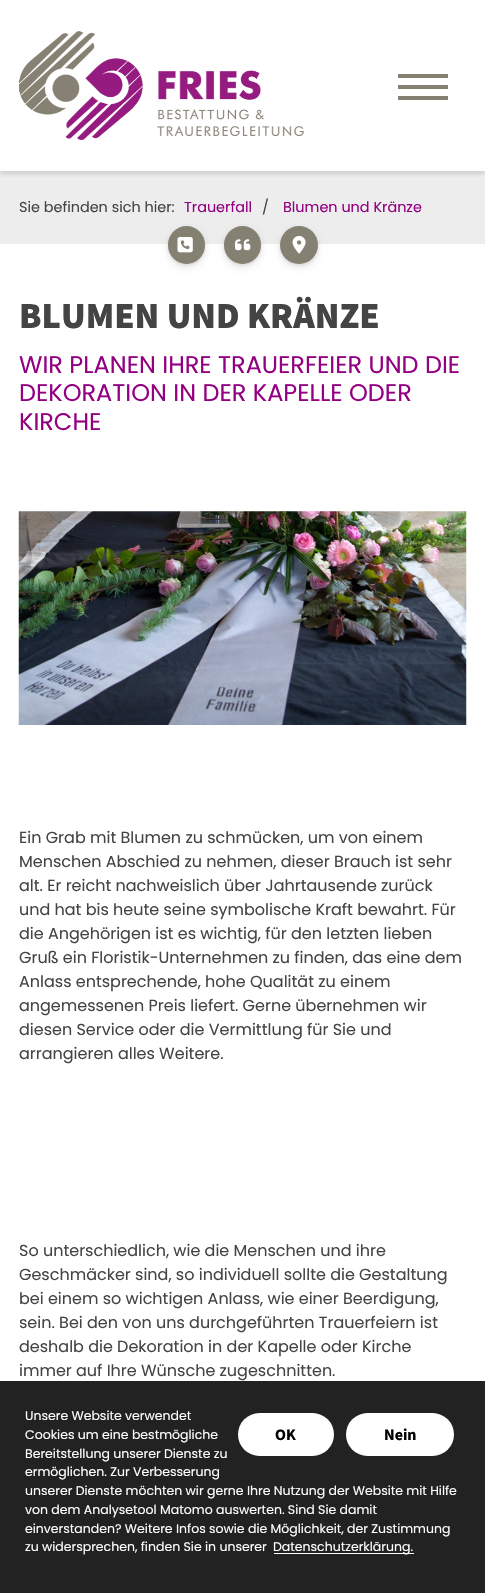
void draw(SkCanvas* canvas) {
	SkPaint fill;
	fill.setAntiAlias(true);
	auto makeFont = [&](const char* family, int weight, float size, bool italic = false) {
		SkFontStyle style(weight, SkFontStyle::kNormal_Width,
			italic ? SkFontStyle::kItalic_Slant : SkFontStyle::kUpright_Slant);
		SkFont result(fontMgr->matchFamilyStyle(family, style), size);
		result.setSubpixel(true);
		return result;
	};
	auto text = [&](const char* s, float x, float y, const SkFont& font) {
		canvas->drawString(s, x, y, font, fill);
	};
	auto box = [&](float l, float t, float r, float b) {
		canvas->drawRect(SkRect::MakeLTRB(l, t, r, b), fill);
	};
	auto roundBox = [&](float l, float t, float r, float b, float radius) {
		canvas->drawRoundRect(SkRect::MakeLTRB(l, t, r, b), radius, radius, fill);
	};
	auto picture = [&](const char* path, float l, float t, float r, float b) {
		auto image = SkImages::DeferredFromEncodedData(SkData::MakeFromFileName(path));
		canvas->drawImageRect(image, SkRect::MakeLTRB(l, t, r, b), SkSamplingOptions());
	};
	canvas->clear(0xFFFFFFFF);
	fill.setColor(0xFFEDEDED);
	box(0, 171, 485, 244);
	canvas->save();
	canvas->clipRect(SkRect::MakeLTRB(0, 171, 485, 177));
	fill.setColor(0x0F000000);
	fill.setMaskFilter(SkMaskFilter::MakeBlur(kNormal_SkBlurStyle, 4));
	canvas->drawRect(SkRect::MakeLTRB(0, 4, 485, 175), fill);
	fill.setMaskFilter(nullptr);
	canvas->restore();
	canvas->save();
	canvas->clipRect(SkRect::MakeLTRB(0, 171, 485, 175));
	fill.setColor(0x12000000);
	fill.setMaskFilter(SkMaskFilter::MakeBlur(kNormal_SkBlurStyle, 2));
	canvas->drawRect(SkRect::MakeLTRB(0, 3, 485, 174), fill);
	fill.setMaskFilter(nullptr);
	canvas->restore();
	picture("image0.png", 19, 31, 304, 140);
	fill.setColor(0xFF858172);
	box(398, 85, 448, 89);
	box(398, 74, 448, 78);
	box(398, 96, 448, 100);
	fill.setColor(0x0F000000);
	fill.setMaskFilter(SkMaskFilter::MakeBlur(kNormal_SkBlurStyle, 4));
	canvas->drawRoundRect(SkRect::MakeLTRB(168, 230, 205, 268), 18.5f, 18.5f, fill);
	fill.setMaskFilter(nullptr);
	fill.setColor(0x12000000);
	fill.setMaskFilter(SkMaskFilter::MakeBlur(kNormal_SkBlurStyle, 2));
	canvas->drawRoundRect(SkRect::MakeLTRB(168, 229, 205, 266), 18.5f, 18.5f, fill);
	fill.setMaskFilter(nullptr);
	fill.setColor(0x0D000000);
	fill.setMaskFilter(SkMaskFilter::MakeBlur(kNormal_SkBlurStyle, 1));
	canvas->drawRoundRect(SkRect::MakeLTRB(168, 228, 205, 265), 18.5f, 18.5f, fill);
	fill.setMaskFilter(nullptr);
	fill.setColor(0xFF858172);
	roundBox(168, 226, 205, 264, 18.5f);
	picture("image1.png", 177, 237, 193, 253);
	fill.setColor(0x0F000000);
	fill.setMaskFilter(SkMaskFilter::MakeBlur(kNormal_SkBlurStyle, 4));
	canvas->drawRoundRect(SkRect::MakeLTRB(224, 230, 261, 268), 18.5f, 18.5f, fill);
	fill.setMaskFilter(nullptr);
	fill.setColor(0x12000000);
	fill.setMaskFilter(SkMaskFilter::MakeBlur(kNormal_SkBlurStyle, 2));
	canvas->drawRoundRect(SkRect::MakeLTRB(224, 229, 261, 266), 18.5f, 18.5f, fill);
	fill.setMaskFilter(nullptr);
	fill.setColor(0x0D000000);
	fill.setMaskFilter(SkMaskFilter::MakeBlur(kNormal_SkBlurStyle, 1));
	canvas->drawRoundRect(SkRect::MakeLTRB(224, 228, 261, 265), 18.5f, 18.5f, fill);
	fill.setMaskFilter(nullptr);
	fill.setColor(0xFF858172);
	roundBox(224, 226, 261, 264, 18.5f);
	picture("image2.png", 235, 239, 251, 251);
	fill.setColor(0x0F000000);
	fill.setMaskFilter(SkMaskFilter::MakeBlur(kNormal_SkBlurStyle, 4));
	canvas->drawRoundRect(SkRect::MakeLTRB(280, 230, 318, 268), 19, 19, fill);
	fill.setMaskFilter(nullptr);
	fill.setColor(0x12000000);
	fill.setMaskFilter(SkMaskFilter::MakeBlur(kNormal_SkBlurStyle, 2));
	canvas->drawRoundRect(SkRect::MakeLTRB(280, 229, 318, 266), 18.5f, 18.5f, fill);
	fill.setMaskFilter(nullptr);
	fill.setColor(0x0D000000);
	fill.setMaskFilter(SkMaskFilter::MakeBlur(kNormal_SkBlurStyle, 1));
	canvas->drawRoundRect(SkRect::MakeLTRB(280, 228, 318, 265), 18.5f, 18.5f, fill);
	fill.setMaskFilter(nullptr);
	fill.setColor(0xFF858172);
	canvas->drawCircle(299, 245, 19, fill);
	picture("image3.png", 292, 236, 306, 254);
	picture("image4.png", 18, 511, 467, 725);
	fill.setColor(0xFF222222);
	box(0, 1381, 485, 1593);
	fill.setColor(0xFFFFFFFF);
	box(274, 1553, 414, 1554);
	roundBox(238, 1413, 334, 1456, 21.5f);
	roundBox(346, 1413, 454, 1456, 21.5f);
	auto font1 = makeFont("Poppins", 400, 14.4f);
	fill.setColor(0xFF444444);
	text("Sie befinden sich hier:", 19, 212, font1);
	fill.setColor(0xFF930082);
	text("Trauerfall", 184, 212, font1);
	fill.setColor(0xFF444444);
	text("/", 262, 212, font1);
	fill.setColor(0xFF930082);
	text("Blumen und Kränze", 283, 212, font1);
	auto font2 = makeFont("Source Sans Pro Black", 900, 36.75f);
	fill.setColor(0xFF444444);
	text("BLUMEN UND KRÄNZE", 19, 328, font2);
	auto font3 = makeFont("Poppins", 400, 24);
	fill.setColor(0xFF930082);
	text("WIR PLANEN IHRE TRAUERFEIER UND DIE", 19, 373, font3);
	text("DEKORATION IN DER KAPELLE ODER", 19, 401, font3);
	text("KIRCHE", 19, 430, font3);
	auto font4 = makeFont("Poppins", 400, 16);
	fill.setColor(0xFF444444);
	text("Ein Grab mit Blumen zu schmücken, um von einem", 19, 843, font4);
	text("Menschen Abschied zu nehmen, dieser Brauch ist sehr", 19, 867, font4);
	text("alt. Er reicht nachweislich über Jahrtausende zurück", 19, 891, font4);
	text("und hat bis heute seine symbolische Kraft bewahrt. Für", 19, 915, font4);
	text("die Angehörigen ist es wichtig, für den letzten lieben", 19, 939, font4);
	text("Gruß ein Floristik-Unternehmen zu finden, das eine dem", 19, 963, font4);
	text("Anlass entsprechende, hohe Qualität zu einem", 19, 987, font4);
	text("angemessenen Preis liefert. Gerne übernehmen wir", 19, 1011, font4);
	text("diesen Service oder die Vermittlung für Sie und", 19, 1035, font4);
	text("arrangieren alles Weitere.", 19, 1059, font4);
	text("So unterschiedlich, wie die Menschen und ihre", 19, 1256, font4);
	text("Geschmäcker sind, so individuell sollte die Gestaltung", 19, 1280, font4);
	text("bei einem so wichtigen Anlass, wie einer Beerdigung,", 19, 1304, font4);
	text("sein. Bei den von uns durchgeführten Trauerfeiern ist", 19, 1328, font4);
	text("deshalb die Dekoration in der Kapelle oder Kirche", 19, 1352, font4);
	text("immer auf Ihre Wünsche zugeschnitten.", 19, 1376, font4);
	auto font5 = makeFont("Poppins", 400, 12.5f);
	fill.setColor(0xFFFFFFFF);
	text("Unsere Website verwendet", 25, 1420, font5);
	text("Cookies um eine bestmögliche", 25, 1439, font5);
	text("Bereitstellung unserer Dienste zu", 25, 1458, font5);
	text("ermöglichen. Zur Verbesserung", 25, 1476, font5);
	text("unserer Dienste möchten wir gerne Ihre Nutzung der Website mit Hilfe", 25, 1495, font5);
	text("von dem Analysetool Matomo auswerten. Sind Sie damit", 25, 1514, font5);
	text("einverstanden? Weitere Infos sowie die Möglichkeit, der Zustimmung", 25, 1533, font5);
	text("zu widersprechen, finden Sie in unserer", 25, 1551, font5);
	text("Datenschutzerklärung.", 273, 1551, font5);
	auto font6 = makeFont("Source Sans Pro", 700, 16);
	fill.setColor(0xFF000000);
	text("OK", 275, 1440, font6);
	text("Nein", 384, 1440, font6);
}
